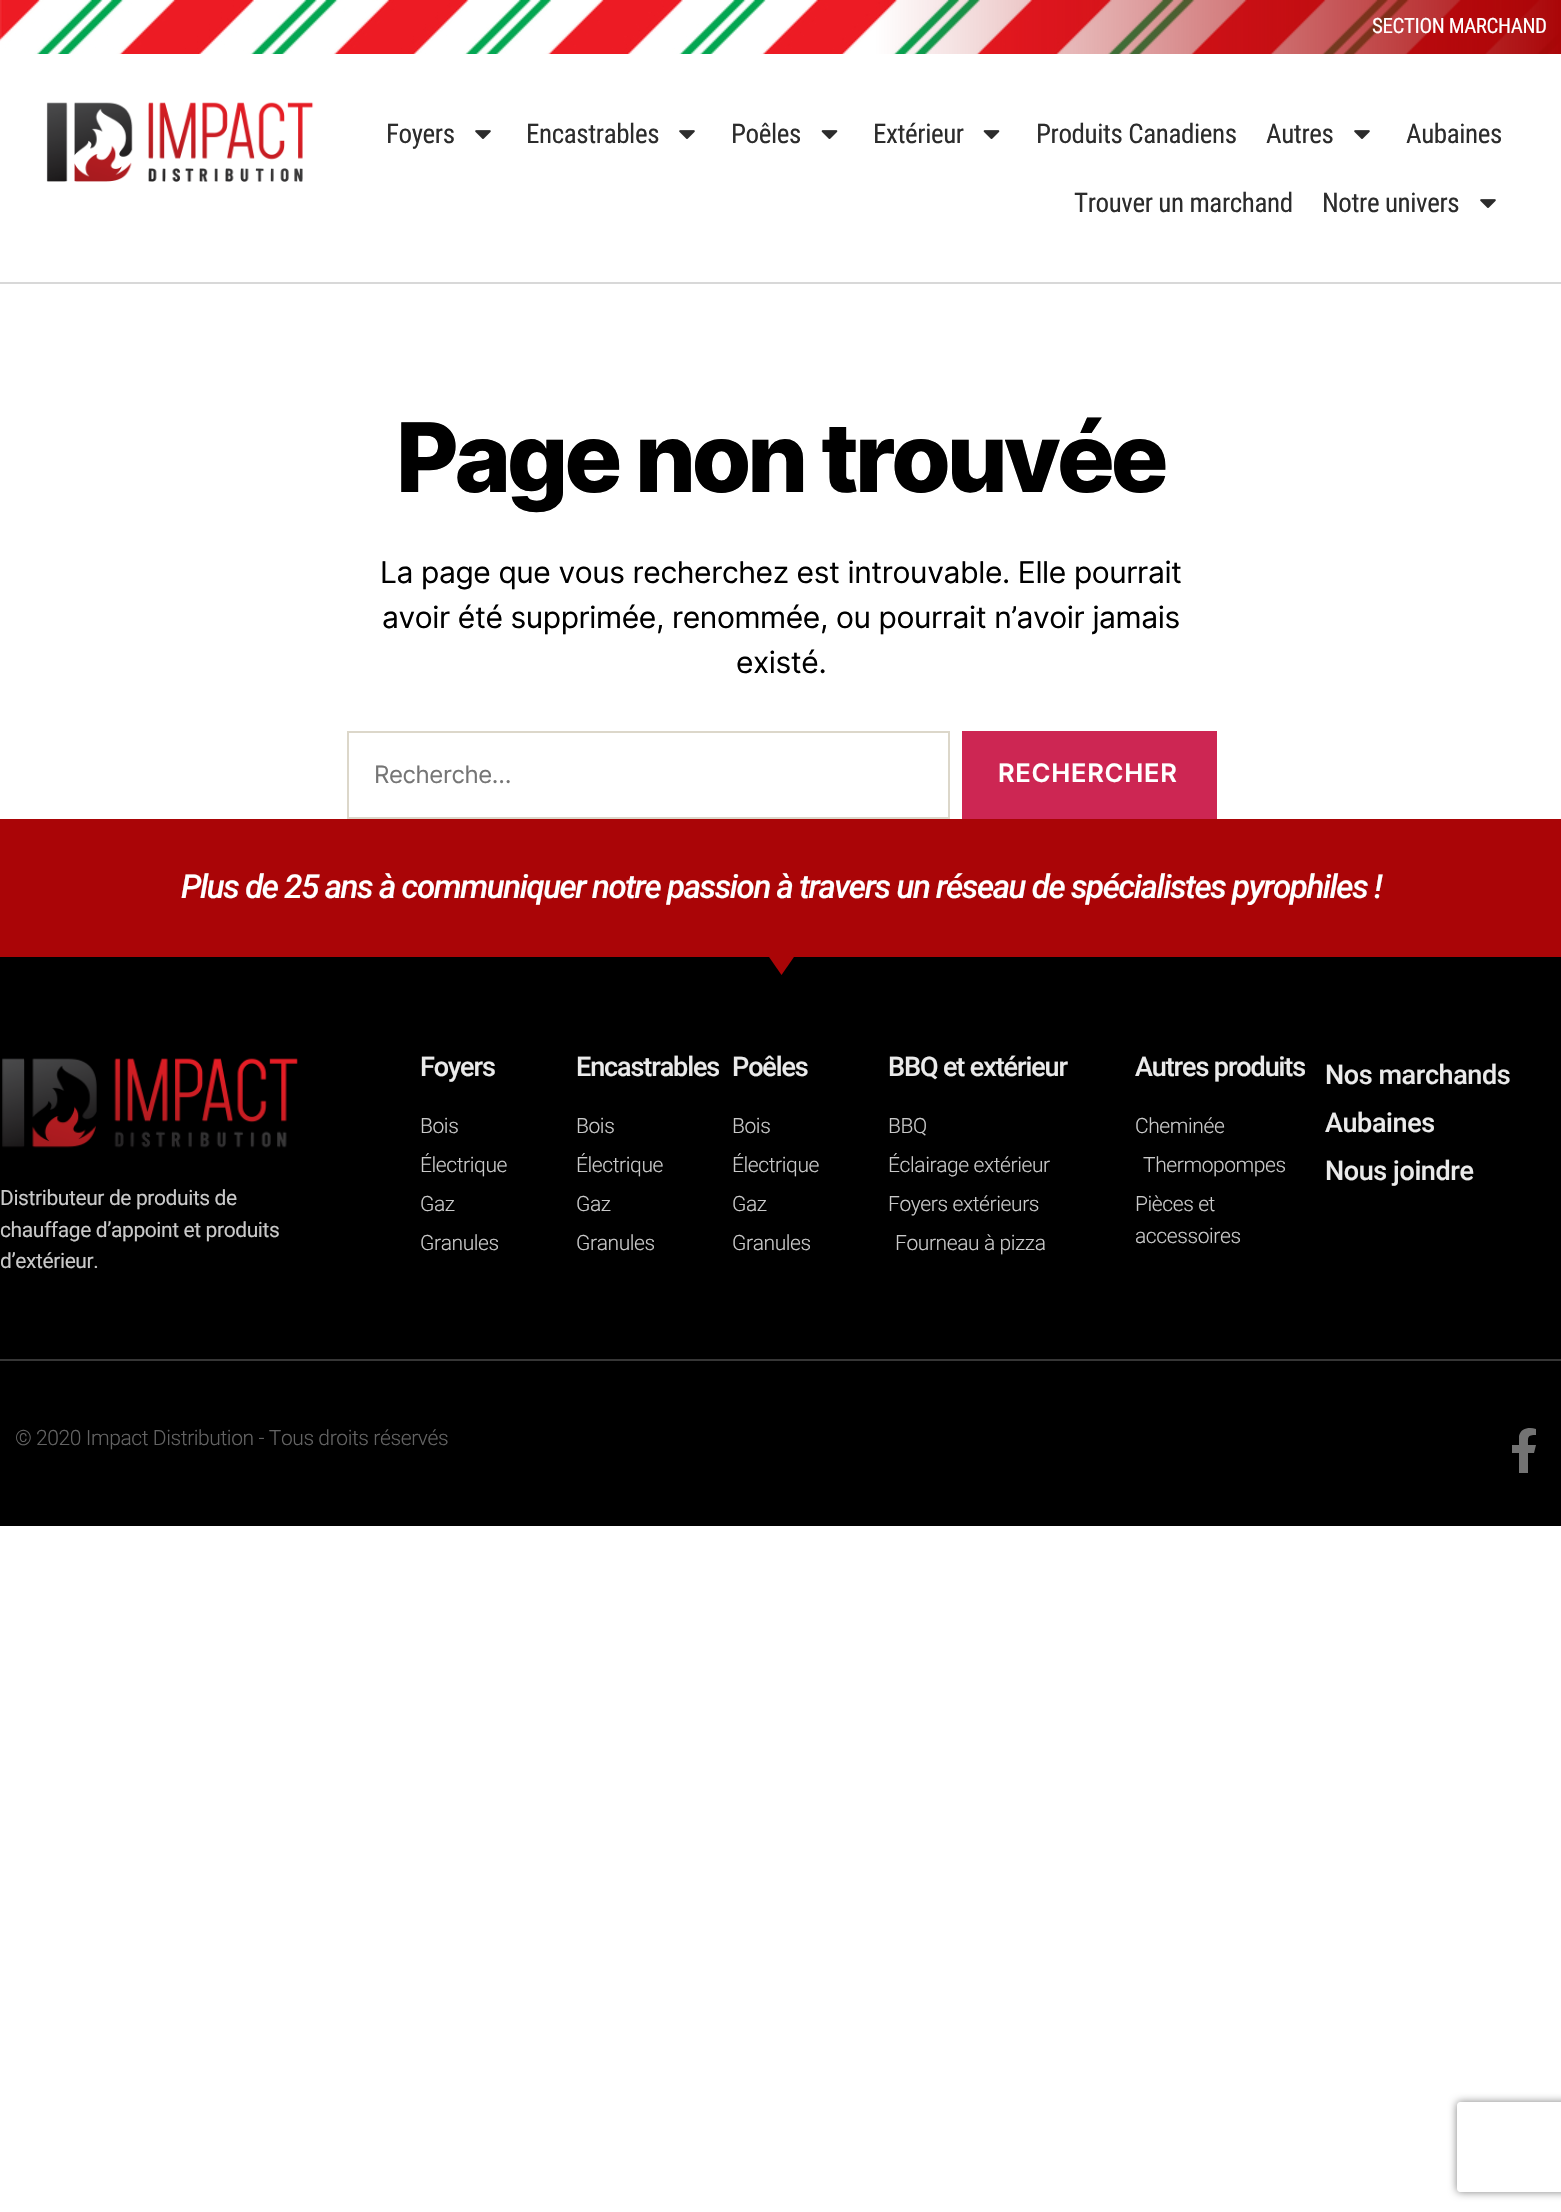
void draw(SkCanvas* canvas) {
	SkPaint fill;
	fill.setAntiAlias(true);
	auto makeFont = [&](const char* family, int weight, float size, bool italic = false) {
		SkFontStyle style(weight, SkFontStyle::kNormal_Width,
			italic ? SkFontStyle::kItalic_Slant : SkFontStyle::kUpright_Slant);
		SkFont result(fontMgr->matchFamilyStyle(family, style), size);
		result.setSubpixel(true);
		return result;
	};
	auto spacedText = [&](const char* s, float x, float y, const SkFont& font, const SkPaint& ink, float letter, float word) {
		std::vector<SkGlyphID> glyphs(font.countText(s, strlen(s), SkTextEncoding::kUTF8));
		std::vector<float> xs(glyphs.size());
		font.textToGlyphs(s, strlen(s), SkTextEncoding::kUTF8, glyphs);
		font.getXPos(glyphs, xs, x);
		float extra = 0;
		for (size_t i = 0; i < glyphs.size(); i++) {
			xs[i] += extra;
			extra += letter + word * (glyphs[i] == font.unicharToGlyph(' '));
		}
		canvas->drawTextBlob(SkTextBlob::MakeFromPosHGlyphs(glyphs, xs, y, font), 0, 0, ink);
	};
	auto box = [&](float l, float t, float r, float b) {
		canvas->drawRect(SkRect::MakeLTRB(l, t, r, b), fill);
	};
	auto picture = [&](const char* path, float l, float t, float r, float b) {
		auto image = SkImages::DeferredFromEncodedData(SkData::MakeFromFileName(path));
		canvas->drawImageRect(image, SkRect::MakeLTRB(l, t, r, b), SkSamplingOptions());
	};
	canvas->clear(0xFFFFFFFF);
	picture("image0.png", 0, 0, 1561, 54);
	fill.setColor(0xFFD8D8D8);
	box(0, 282, 1561, 284);
	picture("image1.png", 46, 102, 314, 182);
	picture("image2.png", 475, 130, 491, 139);
	picture("image2.png", 679, 130, 695, 139);
	picture("image3.png", 821, 130, 838, 139);
	picture("image3.png", 983, 130, 1000, 139);
	picture("image2.png", 1354, 130, 1370, 139);
	picture("image2.png", 1480, 199, 1496, 208);
	fill.setStyle(SkPaint::kStroke_Style);
	fill.setStrokeWidth(2);
	fill.setColor(0xFFDCD7CA);
	canvas->drawRect(SkRect::MakeLTRB(348, 732, 949, 818), fill);
	fill.setStyle(SkPaint::kFill_Style);
	fill.setColor(0xFFCD2653);
	box(962, 731, 1217, 819);
	fill.setColor(0xFFAA0507);
	box(0, 819, 1561, 957);
	fill.setColor(0xFF000000);
	box(0, 957, 1561, 1526);
	canvas->save();
	canvas->clipRect(SkRect::MakeLTRB(312, 956, 1250, 975));
	fill.setColor(0xFFAA0507);
	canvas->drawPath(SkPathBuilder().moveTo(781.5f, 975).lineTo(768, 955.5f).lineTo(795, 955.5f).close().detach(), fill);
	canvas->restore();
	picture("image4.png", 2, 1058, 298, 1148);
	fill.setColor(0xFF363636);
	box(0, 1359, 1561, 1361);
	fill.setColor(0xFF737373);
	canvas->drawPath(SkPathBuilder().moveTo(1534, 1453).lineTo(1536, 1445).lineTo(1528, 1445).cubicTo(1528, 1437, 1527, 1435, 1536, 1435).lineTo(1536, 1429).cubicTo(1529, 1427, 1521, 1428, 1519, 1436).lineTo(1519, 1445).lineTo(1512, 1445).lineTo(1512, 1453).lineTo(1519, 1453).lineTo(1519, 1473).lineTo(1528, 1473).lineTo(1528, 1453).close().detach(), fill);
	canvas->save();
	canvas->clipPath(SkPathBuilder(SkPathFillType::kEvenOdd).moveTo(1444, 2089).lineTo(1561, 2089).lineTo(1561, 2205).lineTo(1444, 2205).close().moveTo(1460, 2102).lineTo(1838, 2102).cubicTo(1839.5f, 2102, 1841, 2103.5f, 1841, 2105).lineTo(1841, 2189).cubicTo(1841, 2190.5f, 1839.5f, 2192, 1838, 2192).lineTo(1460, 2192).cubicTo(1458.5f, 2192, 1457, 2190.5f, 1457, 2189).lineTo(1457, 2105).cubicTo(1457, 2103.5f, 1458.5f, 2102, 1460, 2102).close().detach(), true);
	fill.setColor(0xFF808080);
	fill.setMaskFilter(SkMaskFilter::MakeBlur(kNormal_SkBlurStyle, 4));
	canvas->drawRoundRect(SkRect::MakeLTRB(1457, 2102, 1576, 2192), 3, 3, fill);
	fill.setMaskFilter(nullptr);
	canvas->restore();
	auto font1 = makeFont("Roboto Condensed", 400, 21);
	fill.setColor(0xFFFFFFFF);
	spacedText("SECTION MARCHAND", 1372, 33, font1, fill, -0.4f, 0);
	auto font2 = makeFont("Roboto Condensed", 400, 27);
	fill.setColor(0xFF2C2C2C);
	spacedText("Foyers", 386, 143, font2, fill, -0.4f, 0);
	spacedText("Encastrables", 526, 143, font2, fill, -0.4f, 0);
	spacedText("Poêles", 731, 143, font2, fill, -0.4f, 0);
	spacedText("Extérieur", 873, 143, font2, fill, -0.4f, 0);
	spacedText("Produits Canadiens", 1036, 143, font2, fill, -0.4f, 0);
	spacedText("Autres", 1266, 143, font2, fill, -0.4f, 0);
	spacedText("Aubaines", 1406, 143, font2, fill, -0.4f, 0);
	spacedText("Trouver un marchand", 1074, 212, font2, fill, -0.4f, 0);
	spacedText("Notre univers", 1322, 212, font2, fill, -0.4f, 0);
	auto font3 = makeFont("Inter", 800, 96);
	fill.setColor(0xFF000000);
	spacedText("Page non trouvée", 396, 492, font3, fill, -4, 0);
	auto font4 = makeFont("Inter", 400, 30);
	spacedText("La page que vous recherchez est introuvable. Elle pourrait", 380, 583, font4, fill, -0.4f, 0);
	spacedText("avoir été supprimée, renommée, ou pourrait n’avoir jamais", 382, 628, font4, fill, -0.4f, 0);
	spacedText("existé.", 736, 673, font4, fill, -0.4f, 0);
	auto font5 = makeFont("Inter", 400, 24);
	fill.setColor(0xFF757575);
	spacedText("Recherche…", 374, 783, font5, fill, -0.4f, 0);
	auto font6 = makeFont("Inter", 600, 25.5f);
	fill.setColor(0xFFFFFFFF);
	spacedText("RECHERCHER", 998, 782, font6, fill, 0.75f, 0);
	auto font7 = makeFont("Roboto", 500, 33, true);
	spacedText("Plus de 25 ans à communiquer notre passion à travers un réseau de spécialistes pyrophiles !", 181, 898, font7, fill, -1.37f, 0);
	auto font8 = makeFont("Roboto", 500, 27);
	fill.setColor(0xFFEAEAEA);
	spacedText("Foyers", 420, 1076, font8, fill, -1.1f, 0);
	auto font9 = makeFont("Roboto", 300, 21);
	fill.setColor(0xFFC9C9C9);
	spacedText("Bois", 420, 1133, font9, fill, -0.4f, 0);
	spacedText("Électrique", 420, 1172, font9, fill, -0.4f, 0);
	spacedText("Gaz", 420, 1211, font9, fill, -0.4f, 0);
	spacedText("Granules", 420, 1250, font9, fill, -0.4f, 0);
	fill.setColor(0xFFEAEAEA);
	spacedText("Encastrables", 576, 1076, font8, fill, -1.1f, 0);
	fill.setColor(0xFFC9C9C9);
	spacedText("Bois", 576, 1133, font9, fill, -0.4f, 0);
	spacedText("Électrique", 576, 1172, font9, fill, -0.4f, 0);
	spacedText("Gaz", 576, 1211, font9, fill, -0.4f, 0);
	spacedText("Granules", 576, 1250, font9, fill, -0.4f, 0);
	fill.setColor(0xFFEAEAEA);
	spacedText("Poêles", 732, 1076, font8, fill, -1.1f, 0);
	fill.setColor(0xFFC9C9C9);
	spacedText("Bois", 732, 1133, font9, fill, -0.4f, 0);
	spacedText("Électrique", 732, 1172, font9, fill, -0.4f, 0);
	spacedText("Gaz", 732, 1211, font9, fill, -0.4f, 0);
	spacedText("Granules", 732, 1250, font9, fill, -0.4f, 0);
	fill.setColor(0xFFEAEAEA);
	spacedText("BBQ et extérieur", 888, 1076, font8, fill, -1.1f, 0);
	fill.setColor(0xFFC9C9C9);
	spacedText("BBQ", 888, 1133, font9, fill, -0.4f, 0);
	spacedText("Éclairage extérieur", 888, 1172, font9, fill, -0.4f, 0);
	spacedText("Foyers extérieurs", 888, 1211, font9, fill, -0.4f, 0);
	spacedText("Fourneau à pizza", 895, 1250, font9, fill, -0.4f, 0);
	fill.setColor(0xFFEAEAEA);
	spacedText("Autres produits", 1135, 1076, font8, fill, -1.1f, 0);
	fill.setColor(0xFFC9C9C9);
	spacedText("Cheminée", 1135, 1133, font9, fill, -0.4f, 0);
	spacedText("Thermopompes", 1143, 1172, font9, fill, -0.4f, 0);
	spacedText("Pièces et", 1135, 1211, font9, fill, -0.4f, 0);
	spacedText("accessoires", 1135, 1243, font9, fill, -0.4f, 0);
	fill.setColor(0xFFEAEAEA);
	spacedText("Nos marchands", 1325, 1084, font8, fill, -0.4f, 0);
	spacedText("Aubaines", 1325, 1132, font8, fill, -0.4f, 0);
	spacedText("Nous joindre", 1325, 1180, font8, fill, -0.4f, 0);
	auto font10 = makeFont("Roboto", 400, 21);
	fill.setColor(0xFFC9C9C9);
	spacedText("Distributeur de produits de", 0, 1205, font10, fill, -0.4f, 0);
	spacedText("chauffage d’appoint et produits", 0, 1237, font10, fill, -0.4f, 0);
	spacedText("d’extérieur.", 0, 1268, font10, fill, -0.4f, 0);
	fill.setColor(0xFF636363);
	spacedText("© 2020 Impact Distribution - Tous droits réservés", 15, 1445, font9, fill, -0.4f, 0);
}
